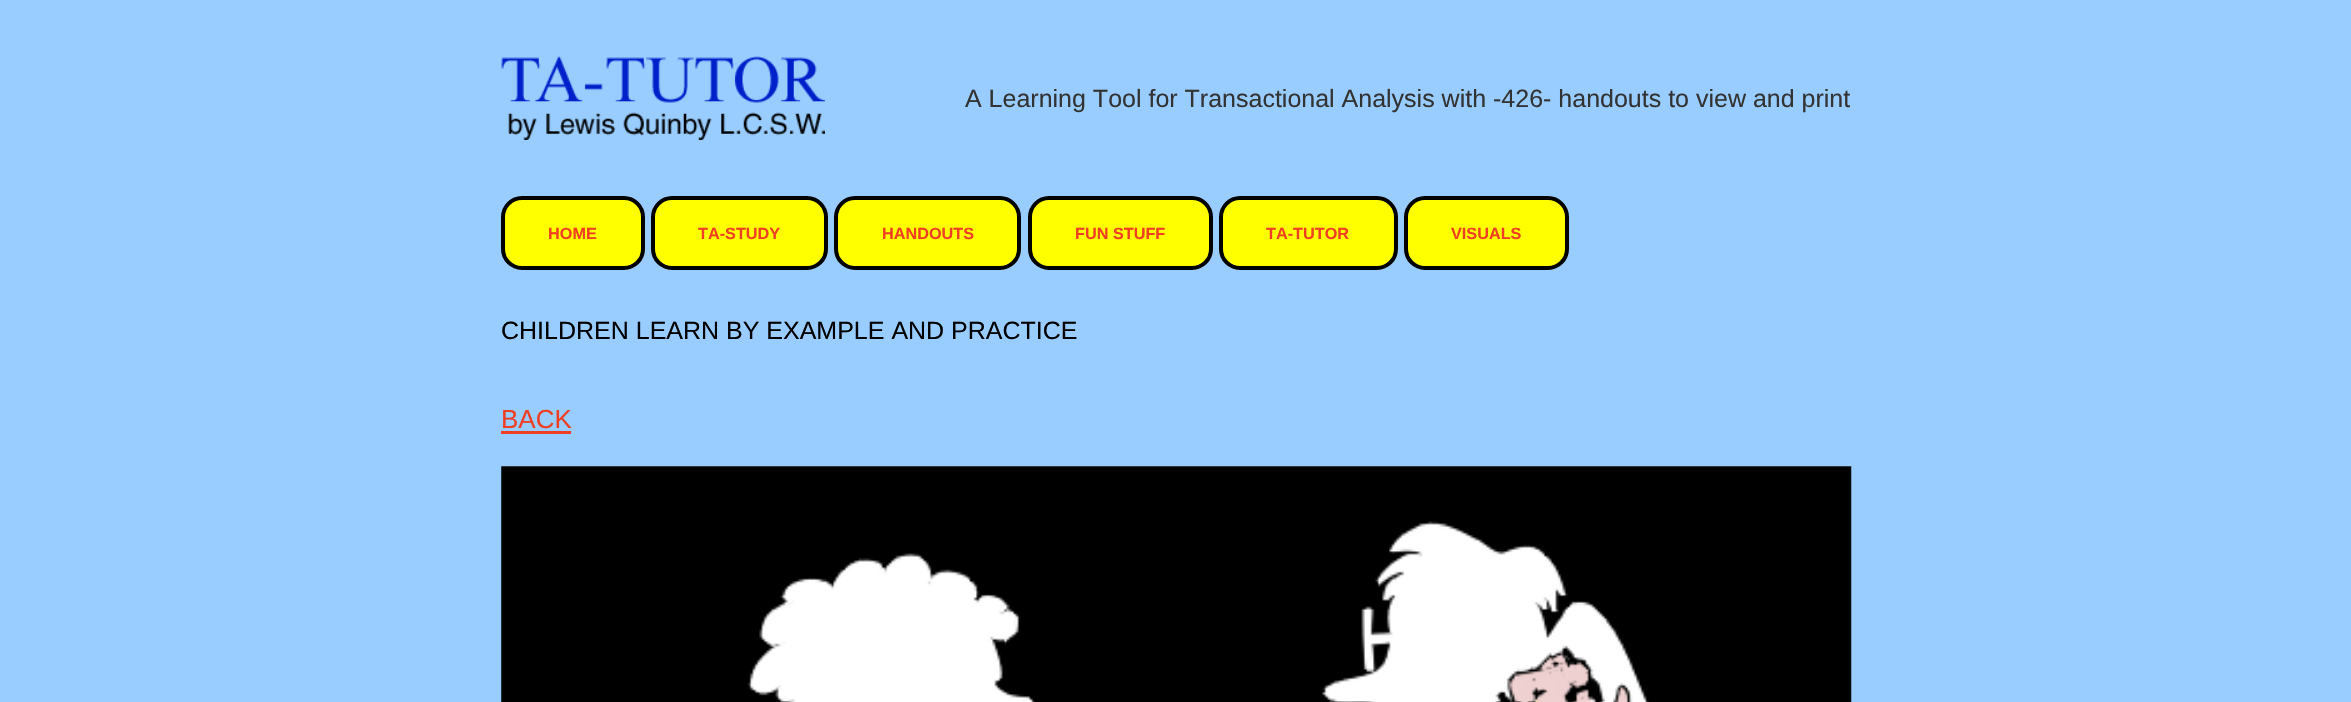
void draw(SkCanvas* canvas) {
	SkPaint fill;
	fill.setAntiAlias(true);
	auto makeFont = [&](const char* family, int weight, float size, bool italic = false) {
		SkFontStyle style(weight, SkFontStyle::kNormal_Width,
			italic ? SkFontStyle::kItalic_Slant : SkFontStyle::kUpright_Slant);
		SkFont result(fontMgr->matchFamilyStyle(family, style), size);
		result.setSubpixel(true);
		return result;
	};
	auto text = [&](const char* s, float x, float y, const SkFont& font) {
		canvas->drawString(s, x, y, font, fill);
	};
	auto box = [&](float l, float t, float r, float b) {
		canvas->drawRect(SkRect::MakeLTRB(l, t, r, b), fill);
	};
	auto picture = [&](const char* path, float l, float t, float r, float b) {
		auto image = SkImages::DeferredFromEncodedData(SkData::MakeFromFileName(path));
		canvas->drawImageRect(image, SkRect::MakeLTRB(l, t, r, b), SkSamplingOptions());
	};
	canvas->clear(0xFF99CCFF);
	picture("image0.png", 501, 56, 825, 140);
	fill.setColor(0xFFFFFF00);
	canvas->drawRoundRect(SkRect::MakeLTRB(503, 198, 643, 268), 19, 19, fill);
	fill.setStyle(SkPaint::kStroke_Style);
	fill.setStrokeWidth(4);
	fill.setColor(0xFF000000);
	canvas->drawRoundRect(SkRect::MakeLTRB(503, 198, 643, 268), 19, 19, fill);
	fill.setStyle(SkPaint::kFill_Style);
	fill.setColor(0xFFFFFF00);
	canvas->drawRoundRect(SkRect::MakeLTRB(653, 198, 826, 268), 19, 19, fill);
	fill.setStyle(SkPaint::kStroke_Style);
	fill.setColor(0xFF000000);
	canvas->drawRoundRect(SkRect::MakeLTRB(653, 198, 826, 268), 19, 19, fill);
	fill.setStyle(SkPaint::kFill_Style);
	fill.setColor(0xFFFFFF00);
	canvas->drawRoundRect(SkRect::MakeLTRB(836, 198, 1019, 268), 19, 19, fill);
	fill.setStyle(SkPaint::kStroke_Style);
	fill.setColor(0xFF000000);
	canvas->drawRoundRect(SkRect::MakeLTRB(836, 198, 1019, 268), 19, 19, fill);
	fill.setStyle(SkPaint::kFill_Style);
	fill.setColor(0xFFFFFF00);
	canvas->drawRoundRect(SkRect::MakeLTRB(1030, 198, 1211, 268), 19, 19, fill);
	fill.setStyle(SkPaint::kStroke_Style);
	fill.setColor(0xFF000000);
	canvas->drawRoundRect(SkRect::MakeLTRB(1030, 198, 1211, 268), 19, 19, fill);
	fill.setStyle(SkPaint::kFill_Style);
	fill.setColor(0xFFFFFF00);
	canvas->drawRoundRect(SkRect::MakeLTRB(1221, 198, 1396, 268), 19, 19, fill);
	fill.setStyle(SkPaint::kStroke_Style);
	fill.setColor(0xFF000000);
	canvas->drawRoundRect(SkRect::MakeLTRB(1221, 198, 1396, 268), 19, 19, fill);
	fill.setStyle(SkPaint::kFill_Style);
	fill.setColor(0xFFFFFF00);
	canvas->drawRoundRect(SkRect::MakeLTRB(1406, 198, 1567, 268), 19, 19, fill);
	fill.setStyle(SkPaint::kStroke_Style);
	fill.setColor(0xFF000000);
	canvas->drawRoundRect(SkRect::MakeLTRB(1406, 198, 1567, 268), 19, 19, fill);
	fill.setStyle(SkPaint::kFill_Style);
	fill.setColor(0xFFEF3E22);
	box(501, 431, 571, 434);
	picture("image1.png", 501, 466, 1852, 702);
	auto font1 = makeFont("Liberation Sans", 400, 25);
	fill.setColor(0xFF333333);
	text("A Learning Tool for Transactional Analysis with -426- handouts to view and print", 965, 107, font1);
	auto font2 = makeFont("Liberation Sans", 700, 16.25f);
	fill.setColor(0xFFEF3E22);
	text("HOME", 548, 239, font2);
	text("TA-STUDY", 698, 239, font2);
	text("HANDOUTS", 882, 239, font2);
	text("FUN STUFF", 1075, 239, font2);
	text("TA-TUTOR", 1266, 239, font2);
	text("VISUALS", 1451, 239, font2);
	fill.setColor(0xFF000000);
	text("CHILDREN LEARN BY EXAMPLE AND PRACTICE", 501, 339, font1);
	auto font3 = makeFont("Liberation Sans", 400, 26);
	fill.setColor(0xFFEF3E22);
	text("BACK", 501, 428, font3);
}
